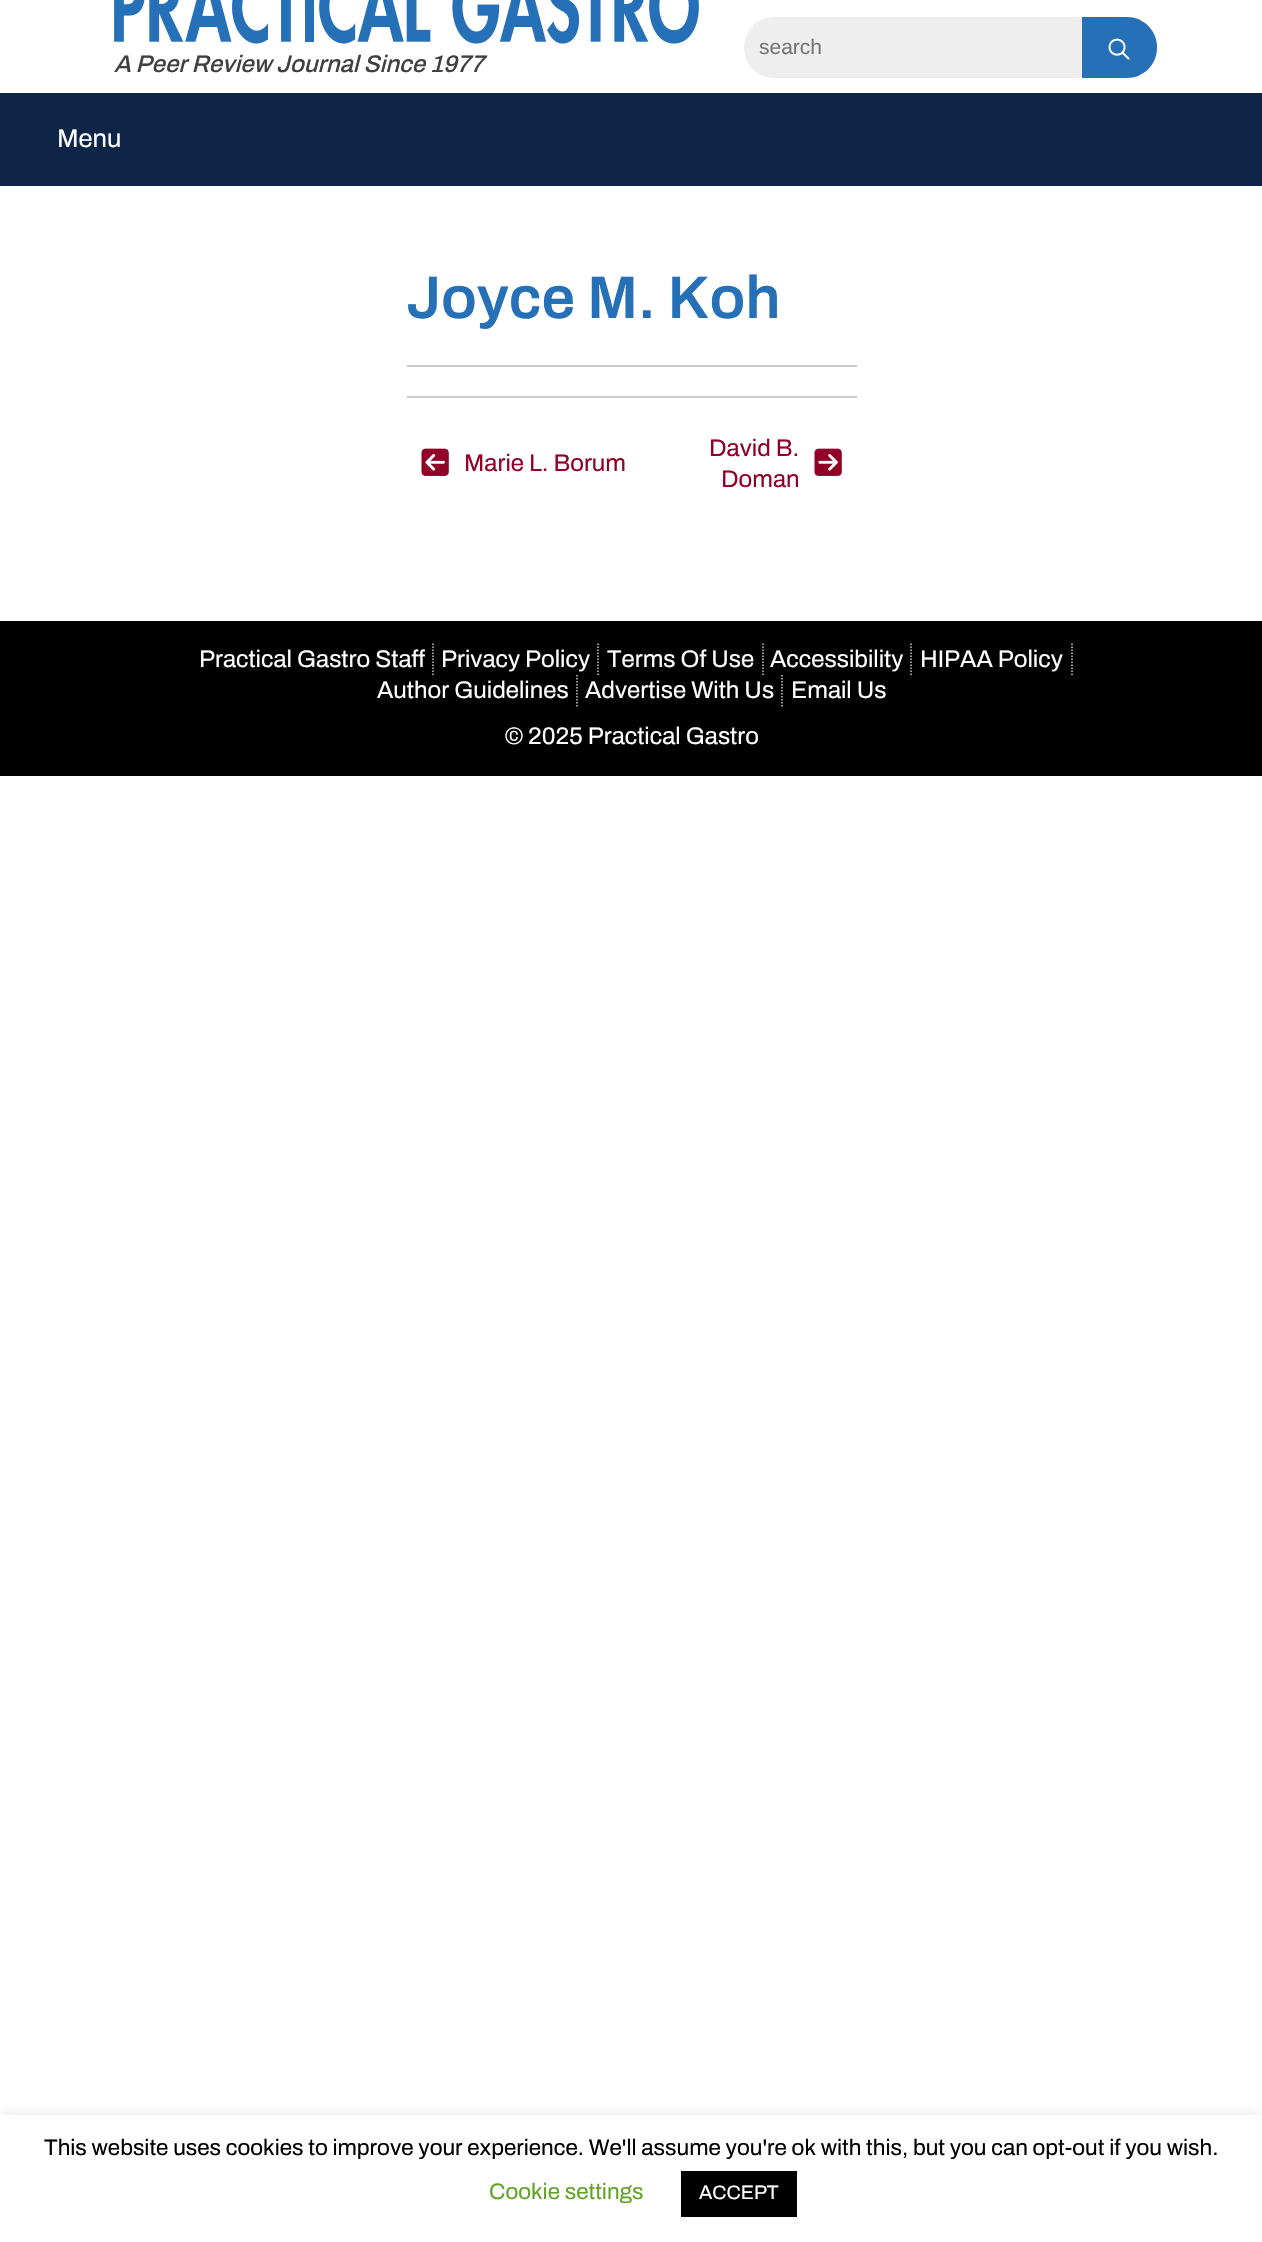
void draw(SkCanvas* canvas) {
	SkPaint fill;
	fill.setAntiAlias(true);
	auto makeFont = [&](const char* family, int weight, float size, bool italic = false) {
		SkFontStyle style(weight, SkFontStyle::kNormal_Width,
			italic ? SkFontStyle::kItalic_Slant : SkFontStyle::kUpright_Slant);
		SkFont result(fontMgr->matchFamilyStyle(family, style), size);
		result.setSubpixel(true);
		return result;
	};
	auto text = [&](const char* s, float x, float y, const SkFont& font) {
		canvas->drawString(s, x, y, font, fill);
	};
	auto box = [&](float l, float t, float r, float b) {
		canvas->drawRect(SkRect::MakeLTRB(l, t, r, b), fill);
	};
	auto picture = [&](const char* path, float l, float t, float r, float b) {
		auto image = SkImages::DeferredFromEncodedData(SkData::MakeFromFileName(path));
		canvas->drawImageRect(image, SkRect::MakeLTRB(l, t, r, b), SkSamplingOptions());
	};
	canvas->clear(0xFFFFFFFF);
	fill.setColor(0xFFEEEEEE);
	canvas->drawPath(SkPathBuilder().moveTo(774, 17).lineTo(1082, 17).lineTo(1082, 78).lineTo(774, 78).cubicTo(757.5f, 78, 744, 64.5f, 744, 48).lineTo(744, 47).cubicTo(744, 30.5f, 757.5f, 17, 774, 17).close().detach(), fill);
	fill.setColor(0xFF2670B8);
	canvas->drawPath(SkPathBuilder().moveTo(1082, 17).lineTo(1127, 17).cubicTo(1143.5f, 17, 1157, 30.5f, 1157, 47).lineTo(1157, 48).cubicTo(1157, 64.5f, 1143.5f, 78, 1127, 78).lineTo(1082, 78).close().detach(), fill);
	picture("image0.png", 1108, 38, 1130, 60);
	picture("image1.png", 114, 0, 699, 44);
	fill.setColor(0xFF0E2548);
	box(0, 93, 1262, 186);
	fill.setColor(0xFFCCCCCC);
	box(407, 365, 857, 367);
	box(407, 396, 857, 398);
	picture("image2.png", 421, 448, 449, 476);
	picture("image3.png", 814, 448, 842, 476);
	fill.setColor(0xFF000000);
	box(0, 621, 1262, 776);
	fill.setStyle(SkPaint::kStroke_Style);
	fill.setStrokeWidth(1.5f);
	fill.setColor(0xFFCCCCCC);
	fill.setPathEffect(SkDashPathEffect::Make({{1.5f, 1.5f}}, 0));
	canvas->drawPath(SkPathBuilder().moveTo(433, 643.5f).lineTo(433, 675).detach(), fill);
	fill.setPathEffect(nullptr);
	fill.setPathEffect(SkDashPathEffect::Make({{1.5f, 1.5f}}, 0));
	canvas->drawPath(SkPathBuilder().moveTo(598, 643.5f).lineTo(598, 675).detach(), fill);
	fill.setPathEffect(nullptr);
	fill.setPathEffect(SkDashPathEffect::Make({{1.5f, 1.5f}}, 0));
	canvas->drawPath(SkPathBuilder().moveTo(763, 643.5f).lineTo(763, 675).detach(), fill);
	fill.setPathEffect(nullptr);
	fill.setPathEffect(SkDashPathEffect::Make({{1.5f, 1.5f}}, 0));
	canvas->drawPath(SkPathBuilder().moveTo(911, 643.5f).lineTo(911, 675).detach(), fill);
	fill.setPathEffect(nullptr);
	fill.setPathEffect(SkDashPathEffect::Make({{1.5f, 1.5f}}, 0));
	canvas->drawPath(SkPathBuilder().moveTo(1072, 643.5f).lineTo(1072, 675).detach(), fill);
	fill.setPathEffect(nullptr);
	fill.setPathEffect(SkDashPathEffect::Make({{1.5f, 1.5f}}, 0));
	canvas->drawPath(SkPathBuilder().moveTo(577, 675).lineTo(577, 706.5f).detach(), fill);
	fill.setPathEffect(nullptr);
	fill.setPathEffect(SkDashPathEffect::Make({{1.5f, 1.5f}}, 0));
	canvas->drawPath(SkPathBuilder().moveTo(782, 675).lineTo(782, 706.5f).detach(), fill);
	fill.setPathEffect(nullptr);
	canvas->save();
	canvas->clipRect(SkRect::MakeLTRB(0, 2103, 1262, 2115));
	fill.setStyle(SkPaint::kFill_Style);
	fill.setColor(0x4DACABAB);
	fill.setMaskFilter(SkMaskFilter::MakeBlur(kNormal_SkBlurStyle, 7.5f));
	canvas->drawRect(SkRect::MakeLTRB(0, 2114, 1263, 2241), fill);
	fill.setMaskFilter(nullptr);
	canvas->restore();
	fill.setColor(0xFF000000);
	box(681, 2171, 797, 2217);
	auto font1 = makeFont("Liberation Sans", 400, 21);
	fill.setColor(0xFF757575);
	text("search", 759, 54, font1);
	auto font2 = makeFont("Archivo", 600, 24, true);
	fill.setColor(0xFF404040);
	text("A Peer Review Journal Since 1977", 114, 72, font2);
	auto font3 = makeFont("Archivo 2", 600, 25.5f);
	fill.setColor(0xFFFFFFFF);
	text("Menu", 57, 147, font3);
	auto font4 = makeFont("Archivo", 600, 60);
	fill.setColor(0xFF2670B8);
	text("Joyce M. Koh", 406, 318, font4);
	auto font5 = makeFont("Archivo 2", 600, 24);
	fill.setColor(0xFF900027);
	text("Marie L. Borum", 464, 471, font5);
	text("David B.", 709, 456, font5);
	text("Doman", 721, 487, font5);
	fill.setColor(0xFFFFFFFF);
	text("Practical Gastro Staff", 199, 667, font5);
	text("Privacy Policy", 441, 667, font5);
	text("Terms Of Use", 607, 667, font5);
	text("Accessibility", 770, 667, font5);
	text("HIPAA Policy", 920, 667, font5);
	text("Author Guidelines", 377, 698, font5);
	text("Advertise With Us", 585, 698, font5);
	text("Email Us", 791, 698, font5);
	text("© 2025 Practical Gastro", 505, 744, font5);
	auto font6 = makeFont("Archivo 2", 600, 22.5f);
	fill.setColor(0xFF000000);
	text("This website uses cookies to improve your experience. We'll assume you're ok with this, but you can opt-out if you wish.", 44, 2155, font6);
	fill.setColor(0xFF62A329);
	text("Cookie settings", 489, 2199, font6);
	auto font7 = makeFont("Archivo 2", 600, 19.5f);
	fill.setColor(0xFFFFFFFF);
	text("ACCEPT", 699, 2199, font7);
}
